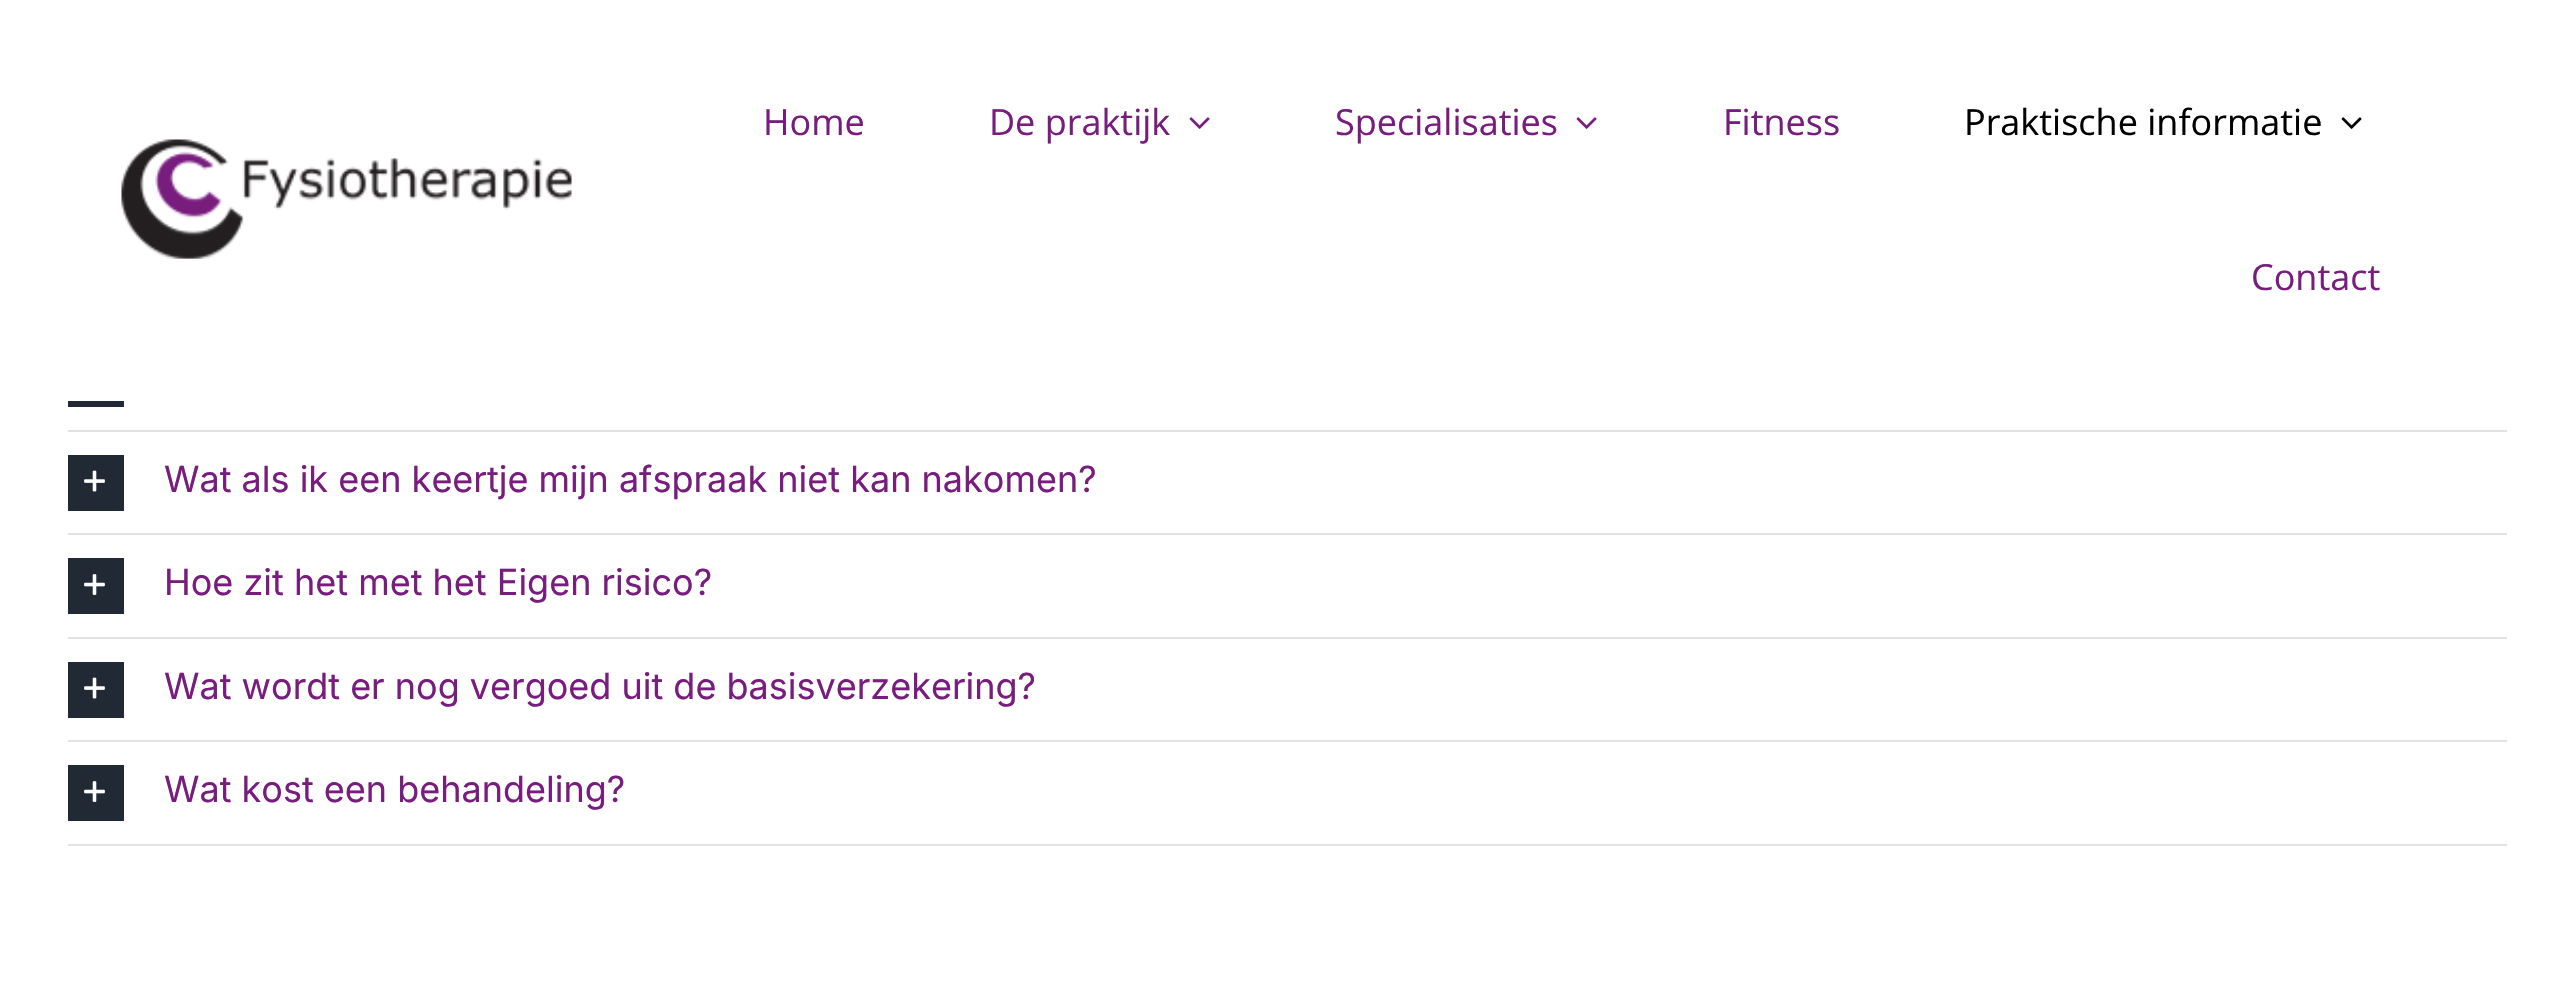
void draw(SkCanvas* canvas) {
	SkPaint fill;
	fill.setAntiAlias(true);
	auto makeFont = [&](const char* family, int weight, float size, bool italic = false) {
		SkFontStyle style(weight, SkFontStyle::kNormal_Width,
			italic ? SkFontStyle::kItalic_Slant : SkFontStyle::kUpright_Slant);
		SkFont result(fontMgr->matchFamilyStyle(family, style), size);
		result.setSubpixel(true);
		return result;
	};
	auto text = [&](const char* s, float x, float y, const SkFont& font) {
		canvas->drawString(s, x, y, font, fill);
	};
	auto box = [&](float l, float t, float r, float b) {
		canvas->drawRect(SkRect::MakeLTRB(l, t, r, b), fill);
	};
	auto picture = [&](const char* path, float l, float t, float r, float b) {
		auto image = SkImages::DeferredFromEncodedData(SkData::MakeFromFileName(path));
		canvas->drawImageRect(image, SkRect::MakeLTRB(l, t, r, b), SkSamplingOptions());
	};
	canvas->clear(0xFFFFFFFF);
	picture("image0.png", 121, 139, 572, 259);
	picture("image1.png", 1189, 117, 1210, 129);
	picture("image1.png", 1576, 117, 1597, 129);
	picture("image2.png", 2341, 117, 2362, 129);
	fill.setColor(0xFFE2E2E2);
	box(68, 430, 2507, 432);
	fill.setColor(0xFF212934);
	box(68, 401, 124, 407);
	fill.setColor(0xFFE2E2E2);
	box(68, 533, 2507, 535);
	fill.setColor(0xFF212934);
	box(68, 455, 124, 511);
	picture("image3.png", 84, 470, 105, 492);
	fill.setColor(0xFFE2E2E2);
	box(68, 637, 2507, 639);
	fill.setColor(0xFF212934);
	box(68, 558, 124, 614);
	picture("image4.png", 84, 574, 105, 595);
	fill.setColor(0xFFE2E2E2);
	box(68, 740, 2507, 742);
	fill.setColor(0xFF212934);
	box(68, 662, 124, 718);
	picture("image3.png", 84, 677, 105, 699);
	fill.setColor(0xFFE2E2E2);
	box(68, 844, 2507, 846);
	fill.setColor(0xFF212934);
	box(68, 765, 124, 821);
	picture("image4.png", 84, 781, 105, 802);
	auto font1 = makeFont("Open Sans", 400, 36);
	fill.setColor(0xFF781D7E);
	text("Home", 763, 135, font1);
	text("De praktijk", 989, 135, font1);
	text("Specialisaties", 1335, 135, font1);
	text("Fitness", 1723, 135, font1);
	fill.setColor(0xFF000000);
	text("Praktische informatie", 1964, 135, font1);
	fill.setColor(0xFF781D7E);
	text("Contact", 2251, 290, font1);
	auto font2 = makeFont("Inter", 400, 36);
	text("Wat als ik een keertje mijn afspraak niet kan nakomen?", 164, 492, font2);
	text("Hoe zit het met het Eigen risico?", 164, 595, font2);
	text("Wat wordt er nog vergoed uit de basisverzekering?", 164, 699, font2);
	text("Wat kost een behandeling?", 164, 802, font2);
}
